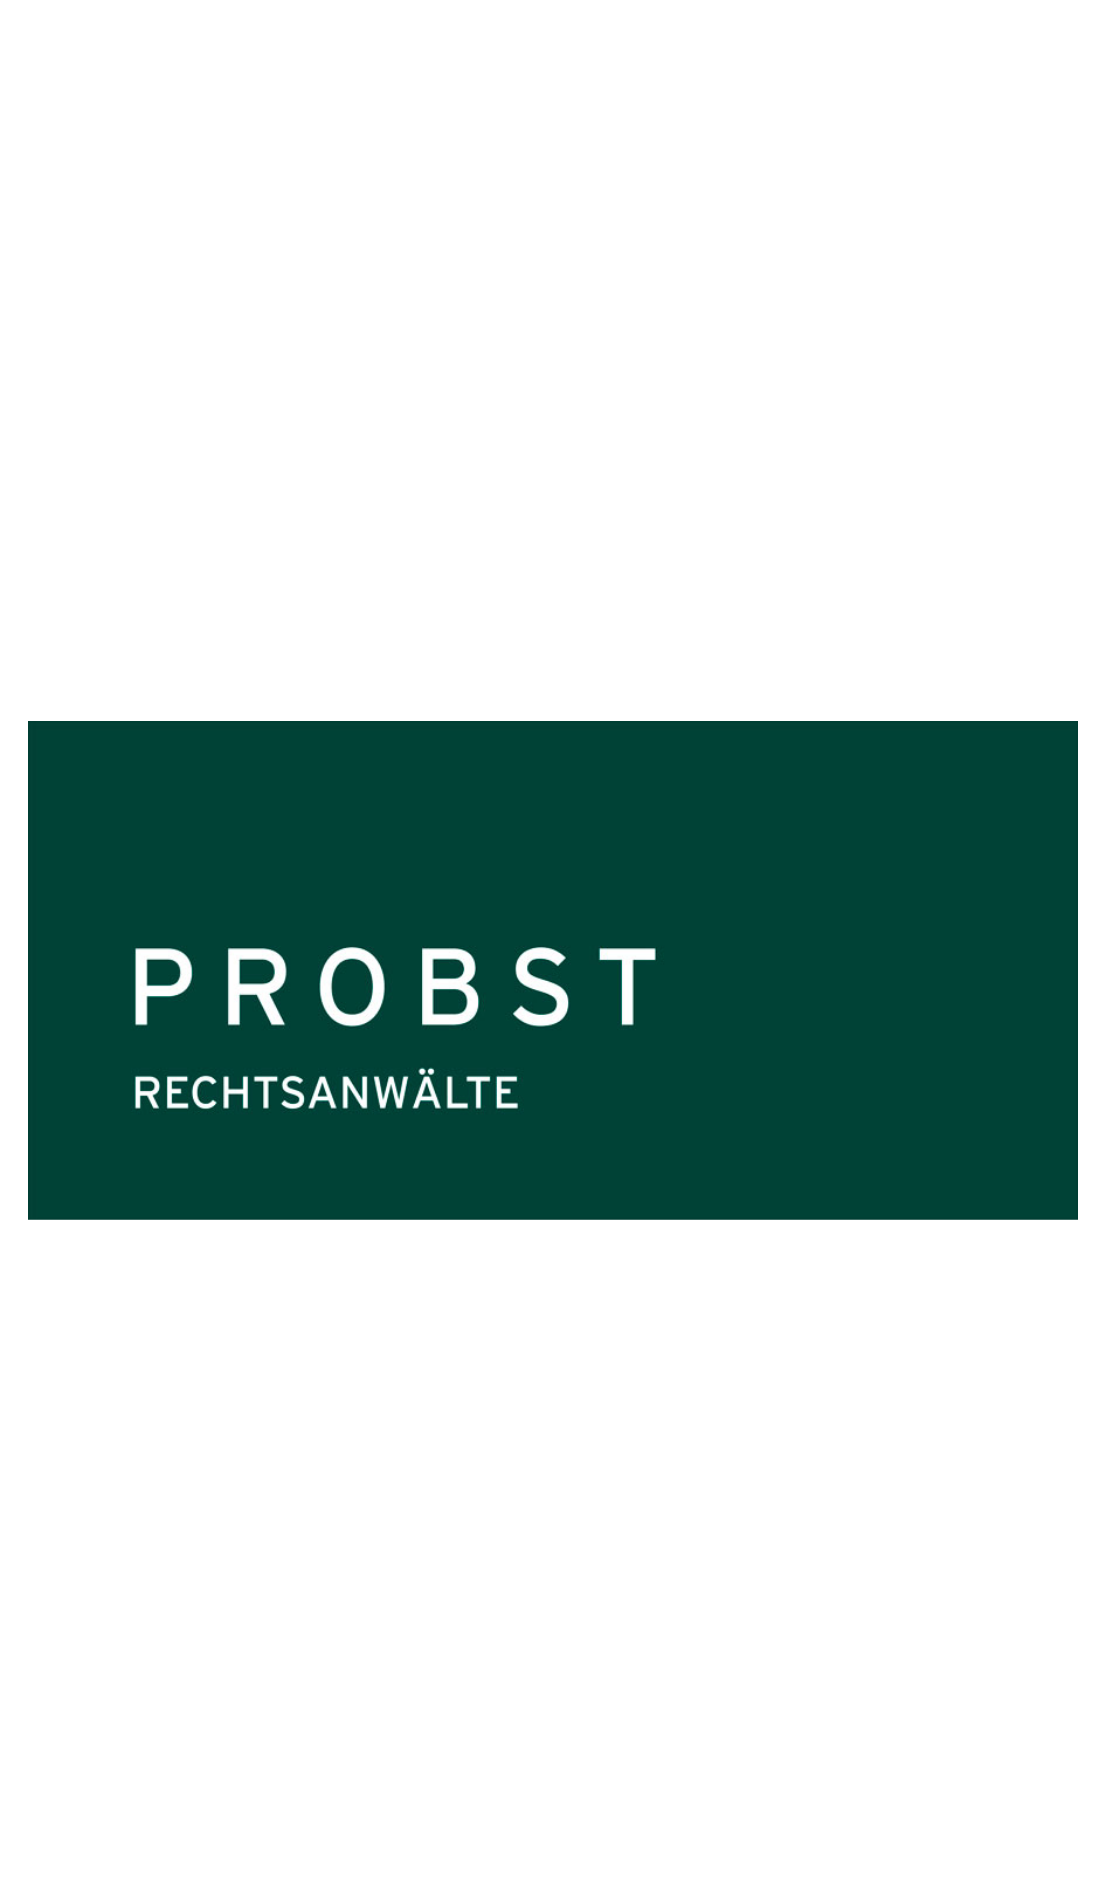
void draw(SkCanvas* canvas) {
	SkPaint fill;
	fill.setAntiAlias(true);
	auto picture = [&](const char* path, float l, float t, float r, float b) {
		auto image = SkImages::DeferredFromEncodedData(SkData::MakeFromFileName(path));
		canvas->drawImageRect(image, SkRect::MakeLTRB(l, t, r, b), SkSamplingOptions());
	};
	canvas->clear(0xFFFFFFFF);
	picture("image0.png", 28, 721, 1078, 1220);
}
